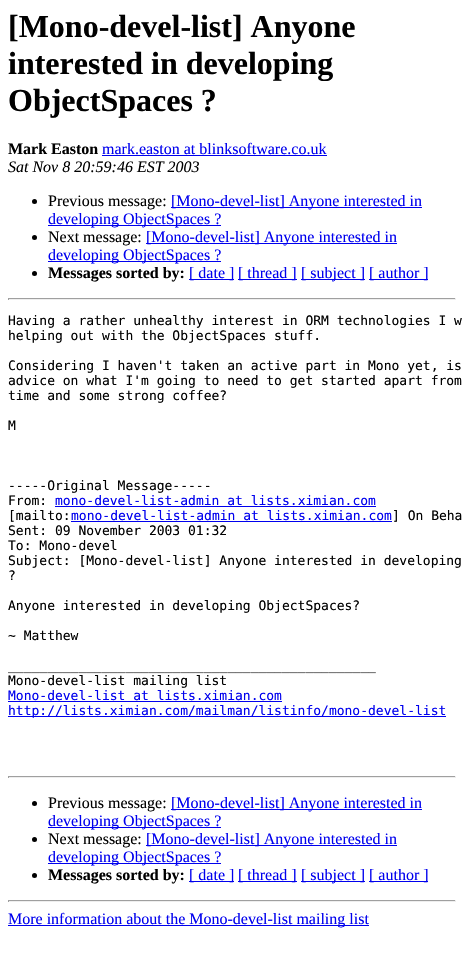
void draw(SkCanvas* canvas) {
	SkPaint fill;
	fill.setAntiAlias(true);
	auto makeFont = [&](const char* family, int weight, float size, bool italic = false) {
		SkFontStyle style(weight, SkFontStyle::kNormal_Width,
			italic ? SkFontStyle::kItalic_Slant : SkFontStyle::kUpright_Slant);
		SkFont result(fontMgr->matchFamilyStyle(family, style), size);
		result.setSubpixel(true);
		return result;
	};
	auto text = [&](const char* s, float x, float y, const SkFont& font) {
		canvas->drawString(s, x, y, font, fill);
	};
	auto box = [&](float l, float t, float r, float b) {
		canvas->drawRect(SkRect::MakeLTRB(l, t, r, b), fill);
	};
	canvas->clear(0xFFFFFFFF);
	fill.setColor(0xFF0000EE);
	box(102, 155, 327, 156);
	fill.setColor(0xFF000000);
	canvas->drawCircle(34.5f, 201.5f, 2.5f, fill);
	fill.setColor(0xFF0000EE);
	box(171, 207, 422, 208);
	box(48, 225, 221, 226);
	fill.setColor(0xFF000000);
	canvas->drawCircle(34.5f, 237.5f, 2.5f, fill);
	fill.setColor(0xFF0000EE);
	box(146, 243, 397, 244);
	box(48, 261, 221, 262);
	fill.setColor(0xFF000000);
	canvas->drawCircle(34.5f, 273.5f, 2.5f, fill);
	fill.setColor(0xFF0000EE);
	box(189, 279, 234, 280);
	box(238, 279, 297, 280);
	box(301, 279, 365, 280);
	box(369, 279, 428, 280);
	fill.setColor(0xFF9F9F9F);
	box(8, 298, 456, 299);
	fill.setColor(0xFFEEEEEE);
	box(455, 298, 456, 300);
	box(8, 299, 456, 300);
	fill.setColor(0xFF9F9F9F);
	box(8, 298, 9, 300);
	fill.setColor(0xFF0000EE);
	box(55, 506, 376, 507);
	box(71, 521, 392, 522);
	box(8, 701, 282, 702);
	box(8, 716, 446, 717);
	fill.setColor(0xFF9F9F9F);
	box(8, 776, 456, 777);
	fill.setColor(0xFFEEEEEE);
	box(455, 776, 456, 778);
	box(8, 777, 456, 778);
	fill.setColor(0xFF9F9F9F);
	box(8, 776, 9, 778);
	fill.setColor(0xFF000000);
	canvas->drawCircle(34.5f, 803.5f, 2.5f, fill);
	fill.setColor(0xFF0000EE);
	box(171, 809, 422, 810);
	box(48, 827, 221, 828);
	fill.setColor(0xFF000000);
	canvas->drawCircle(34.5f, 839.5f, 2.5f, fill);
	fill.setColor(0xFF0000EE);
	box(146, 845, 397, 846);
	box(48, 863, 221, 864);
	fill.setColor(0xFF000000);
	canvas->drawCircle(34.5f, 875.5f, 2.5f, fill);
	fill.setColor(0xFF0000EE);
	box(189, 881, 234, 882);
	box(238, 881, 297, 882);
	box(301, 881, 365, 882);
	box(369, 881, 428, 882);
	fill.setColor(0xFF9F9F9F);
	box(8, 900, 456, 901);
	fill.setColor(0xFFEEEEEE);
	box(455, 900, 456, 902);
	box(8, 901, 456, 902);
	fill.setColor(0xFF9F9F9F);
	box(8, 900, 9, 902);
	fill.setColor(0xFF0000EE);
	box(8, 925, 369, 926);
	auto font1 = makeFont("Liberation Serif", 700, 32);
	fill.setColor(0xFF000000);
	text("[Mono-devel-list] Anyone", 8, 37, font1);
	text("interested in developing", 8, 74, font1);
	text("ObjectSpaces ?", 8, 111, font1);
	auto font2 = makeFont("Liberation Serif", 700, 16);
	text("Mark Easton", 8, 154, font2);
	auto font3 = makeFont("Liberation Serif", 400, 16);
	fill.setColor(0xFF0000EE);
	text("mark.easton at blinksoftware.co.uk", 102, 154, font3);
	auto font4 = makeFont("Liberation Serif", 400, 16, true);
	fill.setColor(0xFF000000);
	text("Sat Nov 8 20:59:46 EST 2003", 8, 172, font4);
	text("Previous message:", 48, 206, font3);
	fill.setColor(0xFF0000EE);
	text("[Mono-devel-list] Anyone interested in", 171, 206, font3);
	text("developing ObjectSpaces ?", 48, 224, font3);
	fill.setColor(0xFF000000);
	text("Next message:", 48, 242, font3);
	fill.setColor(0xFF0000EE);
	text("[Mono-devel-list] Anyone interested in", 146, 242, font3);
	text("developing ObjectSpaces ?", 48, 260, font3);
	fill.setColor(0xFF000000);
	text("Messages sorted by:", 48, 278, font2);
	fill.setColor(0xFF0000EE);
	text("[ date ]", 189, 278, font3);
	text("[ thread ]", 238, 278, font3);
	text("[ subject ]", 301, 278, font3);
	text("[ author ]", 369, 278, font3);
	auto font5 = makeFont("DejaVu Sans Mono", 400, 13);
	fill.setColor(0xFF000000);
	text("Having a rather unhealthy interest in ORM technologies I w", 8, 325, font5);
	text("helping out with the ObjectSpaces stuff.", 8, 340, font5);
	text("Considering I haven't taken an active part in Mono yet, is", 8, 370, font5);
	text("advice on what I'm going to need to get started apart from", 8, 385, font5);
	text("time and some strong coffee?", 8, 400, font5);
	text("M", 8, 430, font5);
	text("-----Original Message-----", 8, 490, font5);
	text("From:", 8, 505, font5);
	fill.setColor(0xFF0000EE);
	text("mono-devel-list-admin at lists.ximian.com", 55, 505, font5);
	fill.setColor(0xFF000000);
	text("[mailto:", 8, 520, font5);
	fill.setColor(0xFF0000EE);
	text("mono-devel-list-admin at lists.ximian.com", 71, 520, font5);
	fill.setColor(0xFF000000);
	text("] On Beha", 392, 520, font5);
	text("Sent: 09 November 2003 01:32", 8, 535, font5);
	text("To: Mono-devel", 8, 550, font5);
	text("Subject: [Mono-devel-list] Anyone interested in developing", 8, 565, font5);
	text("?", 8, 580, font5);
	text("Anyone interested in developing ObjectSpaces?", 8, 610, font5);
	text("~ Matthew", 8, 640, font5);
	text("_______________________________________________", 8, 670, font5);
	text("Mono-devel-list mailing list", 8, 685, font5);
	fill.setColor(0xFF0000EE);
	text("Mono-devel-list at lists.ximian.com", 8, 700, font5);
	text("http://lists.ximian.com/mailman/listinfo/mono-devel-list", 8, 715, font5);
	fill.setColor(0xFF000000);
	text("Previous message:", 48, 808, font3);
	fill.setColor(0xFF0000EE);
	text("[Mono-devel-list] Anyone interested in", 171, 808, font3);
	text("developing ObjectSpaces ?", 48, 826, font3);
	fill.setColor(0xFF000000);
	text("Next message:", 48, 844, font3);
	fill.setColor(0xFF0000EE);
	text("[Mono-devel-list] Anyone interested in", 146, 844, font3);
	text("developing ObjectSpaces ?", 48, 862, font3);
	fill.setColor(0xFF000000);
	text("Messages sorted by:", 48, 880, font2);
	fill.setColor(0xFF0000EE);
	text("[ date ]", 189, 880, font3);
	text("[ thread ]", 238, 880, font3);
	text("[ subject ]", 301, 880, font3);
	text("[ author ]", 369, 880, font3);
	text("More information about the Mono-devel-list mailing list", 8, 924, font3);
}
